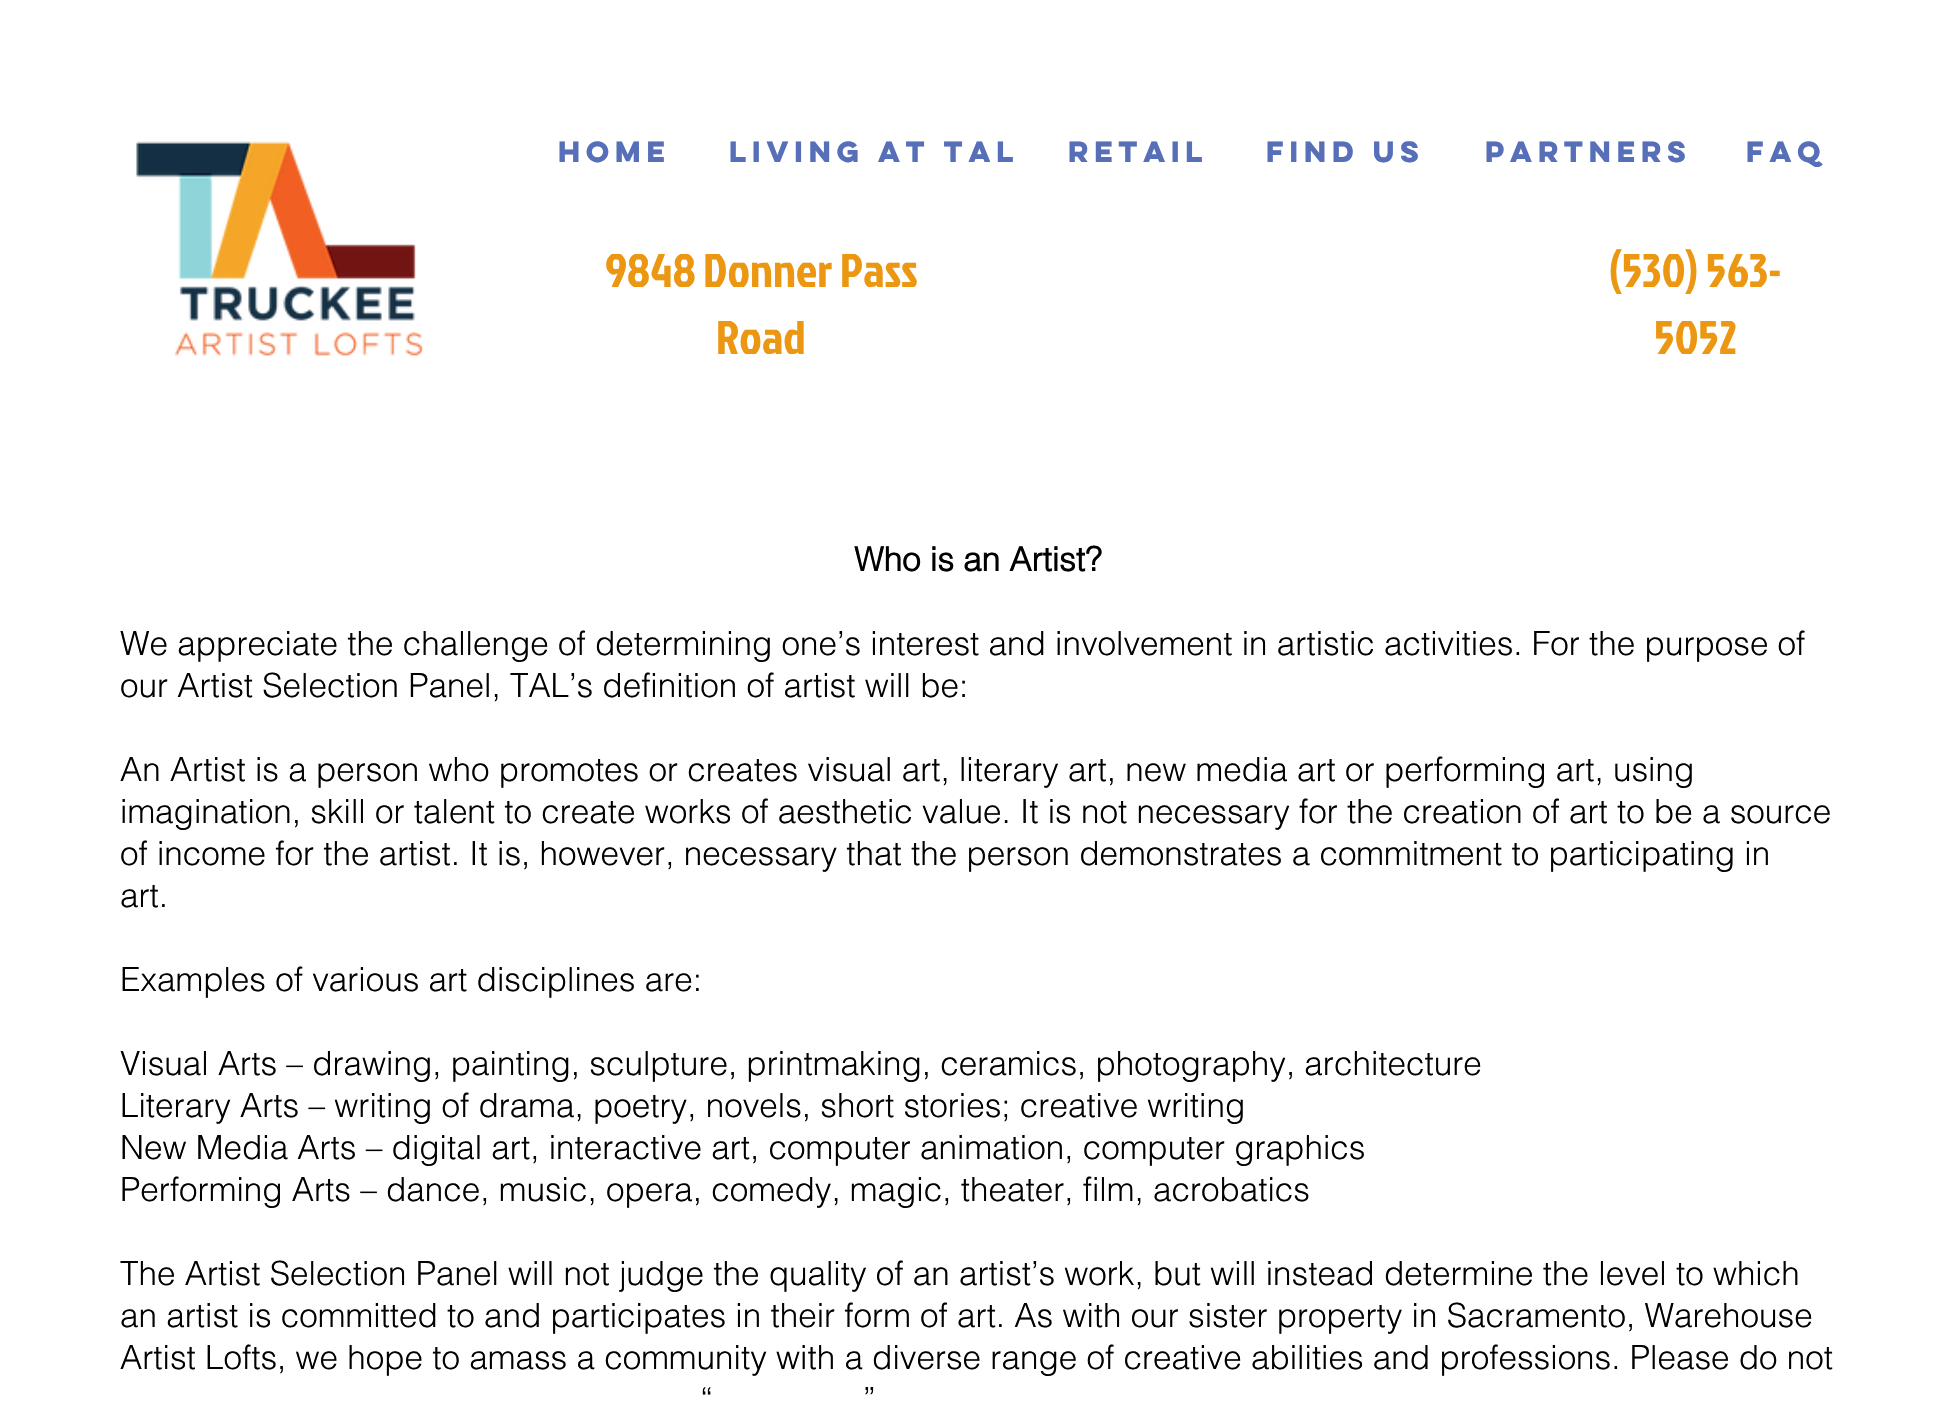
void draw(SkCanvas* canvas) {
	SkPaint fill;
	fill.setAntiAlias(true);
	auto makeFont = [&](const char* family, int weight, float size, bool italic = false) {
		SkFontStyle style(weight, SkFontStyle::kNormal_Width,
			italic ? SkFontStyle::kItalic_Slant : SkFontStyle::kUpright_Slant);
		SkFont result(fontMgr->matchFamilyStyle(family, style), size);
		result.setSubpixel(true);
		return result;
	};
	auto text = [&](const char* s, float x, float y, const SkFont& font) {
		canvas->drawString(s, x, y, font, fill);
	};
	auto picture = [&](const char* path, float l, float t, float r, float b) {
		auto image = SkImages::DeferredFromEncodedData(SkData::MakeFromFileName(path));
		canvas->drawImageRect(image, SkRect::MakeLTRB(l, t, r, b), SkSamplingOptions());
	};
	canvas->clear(0xFFFFFFFF);
	picture("image0.png", 136, 141, 423, 356);
	auto font1 = makeFont("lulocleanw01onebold", 700, 26.25f);
	fill.setColor(0xFF566FB8);
	text("Home", 558, 162, font1);
	text("Living at TAL", 729, 162, font1);
	text("Retail", 1068, 162, font1);
	text("Find us", 1266, 162, font1);
	text("Partners", 1485, 162, font1);
	text("FAQ", 1746, 162, font1);
	auto font2 = makeFont("Jockey One", 400, 47.25f);
	fill.setColor(0xFFEC9712);
	text("9848 Donner Pass", 605, 287, font2);
	text("Road", 716, 354, font2);
	text("(530) 563-", 1609, 287, font2);
	text("5052", 1654, 354, font2);
	auto font3 = makeFont("helvetica", 700, 33.25f);
	fill.setColor(0xFF000000);
	text("Who is an Artist?", 854, 571, font3);
	auto font4 = makeFont("helvetica", 300, 33.25f);
	text("We appreciate the challenge of determining one’s interest and involvement in artistic activities. For the purpose of", 120, 655, font4);
	text("our Artist Selection Panel, TAL’s definition of artist will be:", 120, 697, font4);
	text("An Artist is a person who promotes or creates visual art, literary art, new media art or performing art, using", 120, 781, font4);
	text("imagination, skill or talent to create works of aesthetic value. It is not necessary for the creation of art to be a source", 120, 823, font4);
	text("of income for the artist. It is, however, necessary that the person demonstrates a commitment to participating in", 120, 865, font4);
	text("art.", 120, 907, font4);
	text("Examples of various art disciplines are:", 120, 991, font4);
	text("Visual Arts – drawing, painting, sculpture, printmaking, ceramics, photography, architecture", 120, 1075, font4);
	text("Literary Arts – writing of drama, poetry, novels, short stories; creative writing", 120, 1117, font4);
	text("New Media Arts – digital art, interactive art, computer animation, computer graphics", 120, 1159, font4);
	text("Performing Arts – dance, music, opera, comedy, magic, theater, film, acrobatics", 120, 1201, font4);
	text("The Artist Selection Panel will not judge the quality of an artist’s work, but will instead determine the level to which", 120, 1285, font4);
	text("an artist is committed to and participates in their form of art. As with our sister property in Sacramento, Warehouse", 120, 1327, font4);
	text("Artist Lofts, we hope to amass a community with a diverse range of creative abilities and professions. Please do not", 120, 1369, font4);
	text("“", 700, 1411, font4);
	text("”", 863, 1411, font4);
}
